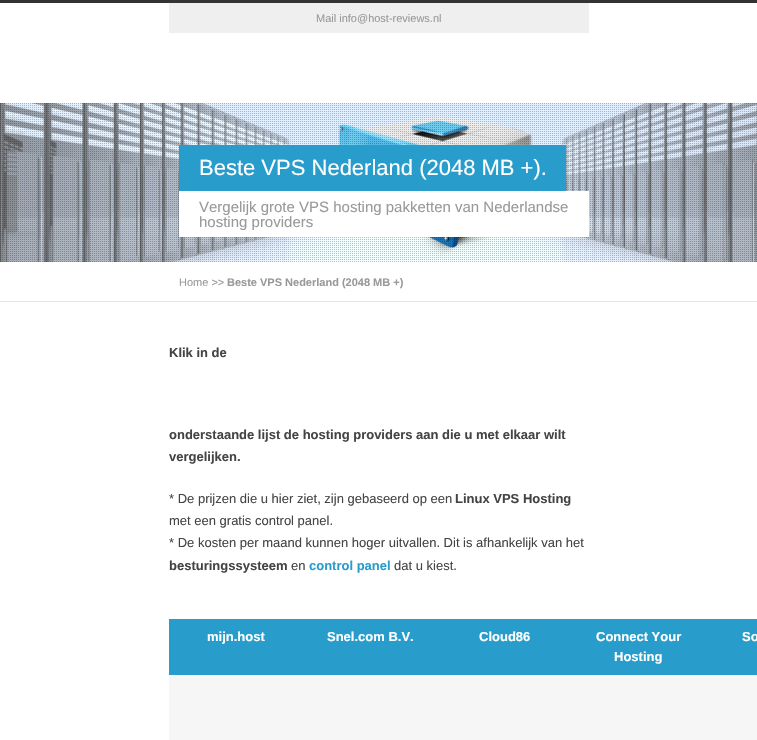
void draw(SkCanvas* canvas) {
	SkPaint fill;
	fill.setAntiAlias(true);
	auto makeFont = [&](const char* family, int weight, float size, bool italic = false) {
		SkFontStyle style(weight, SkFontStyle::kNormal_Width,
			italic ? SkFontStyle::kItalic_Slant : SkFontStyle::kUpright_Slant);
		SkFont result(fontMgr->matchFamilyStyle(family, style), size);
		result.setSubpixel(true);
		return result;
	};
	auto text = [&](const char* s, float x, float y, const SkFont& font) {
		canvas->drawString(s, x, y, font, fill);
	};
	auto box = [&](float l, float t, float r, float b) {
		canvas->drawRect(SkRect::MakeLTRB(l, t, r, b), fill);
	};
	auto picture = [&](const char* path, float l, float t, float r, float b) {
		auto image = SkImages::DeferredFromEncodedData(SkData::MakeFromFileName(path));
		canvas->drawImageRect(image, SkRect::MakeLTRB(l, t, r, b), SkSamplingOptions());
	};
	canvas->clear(0xFFFFFFFF);
	fill.setColor(0xFF333333);
	box(0, 0, 757, 3);
	fill.setColor(0xFFEFEFEF);
	box(169, 3, 589, 33);
	picture("image0.png", 0, 103, 757, 262);
	picture("image1.png", 0, 103, 757, 262);
	fill.setColor(0xFF289DCC);
	box(179, 145, 566, 191);
	fill.setColor(0xFFFFFFFF);
	box(179, 191, 589, 237);
	fill.setColor(0xFFE4E4E4);
	box(0, 301, 757, 302);
	fill.setColor(0xFF289DCC);
	box(169, 619, 757, 675);
	fill.setColor(0xFFF6F6F6);
	box(169, 675, 757, 740);
	auto font1 = makeFont("Liberation Sans", 400, 11);
	fill.setColor(0xFF999999);
	text("Mail info@host-reviews.nl", 316, 22, font1);
	auto font2 = makeFont("Liberation Sans", 400, 22);
	fill.setColor(0xFFFFFFFF);
	text("Beste VPS Nederland (2048 MB +).", 199, 175, font2);
	auto font3 = makeFont("Liberation Sans", 400, 15);
	fill.setColor(0xFF999999);
	text("Vergelijk grote VPS hosting pakketten van Nederlandse", 199, 212, font3);
	text("hosting providers", 199, 227, font3);
	text("Home >>", 179, 286, font1);
	auto font4 = makeFont("Liberation Sans", 700, 11);
	text("Beste VPS Nederland (2048 MB +)", 227, 286, font4);
	auto font5 = makeFont("Liberation Sans", 700, 13);
	fill.setColor(0xFF444444);
	text("Klik in de", 169, 357, font5);
	text("onderstaande lijst de hosting providers aan die u met elkaar wilt", 169, 439, font5);
	text("vergelijken.", 169, 461, font5);
	auto font6 = makeFont("Liberation Sans", 400, 13);
	text("* De prijzen die u hier ziet, zijn gebaseerd op een", 169, 503, font6);
	text("Linux VPS Hosting", 455, 503, font5);
	text("met een gratis control panel.", 169, 525, font6);
	text("* De kosten per maand kunnen hoger uitvallen. Dit is afhankelijk van het", 169, 547, font6);
	text("besturingssysteem", 169, 570, font5);
	text("en", 291, 570, font6);
	fill.setColor(0xFF289DCC);
	text("control panel", 309, 570, font5);
	fill.setColor(0xFF444444);
	text("dat u kiest.", 394, 570, font6);
	fill.setColor(0xFFFFFFFF);
	text("mijn.host", 207, 641, font5);
	text("Snel.com B.V.", 327, 641, font5);
	text("Cloud86", 479, 641, font5);
	text("Connect Your", 596, 641, font5);
	text("Hosting", 614, 661, font5);
	text("So", 742, 641, font5);
}
